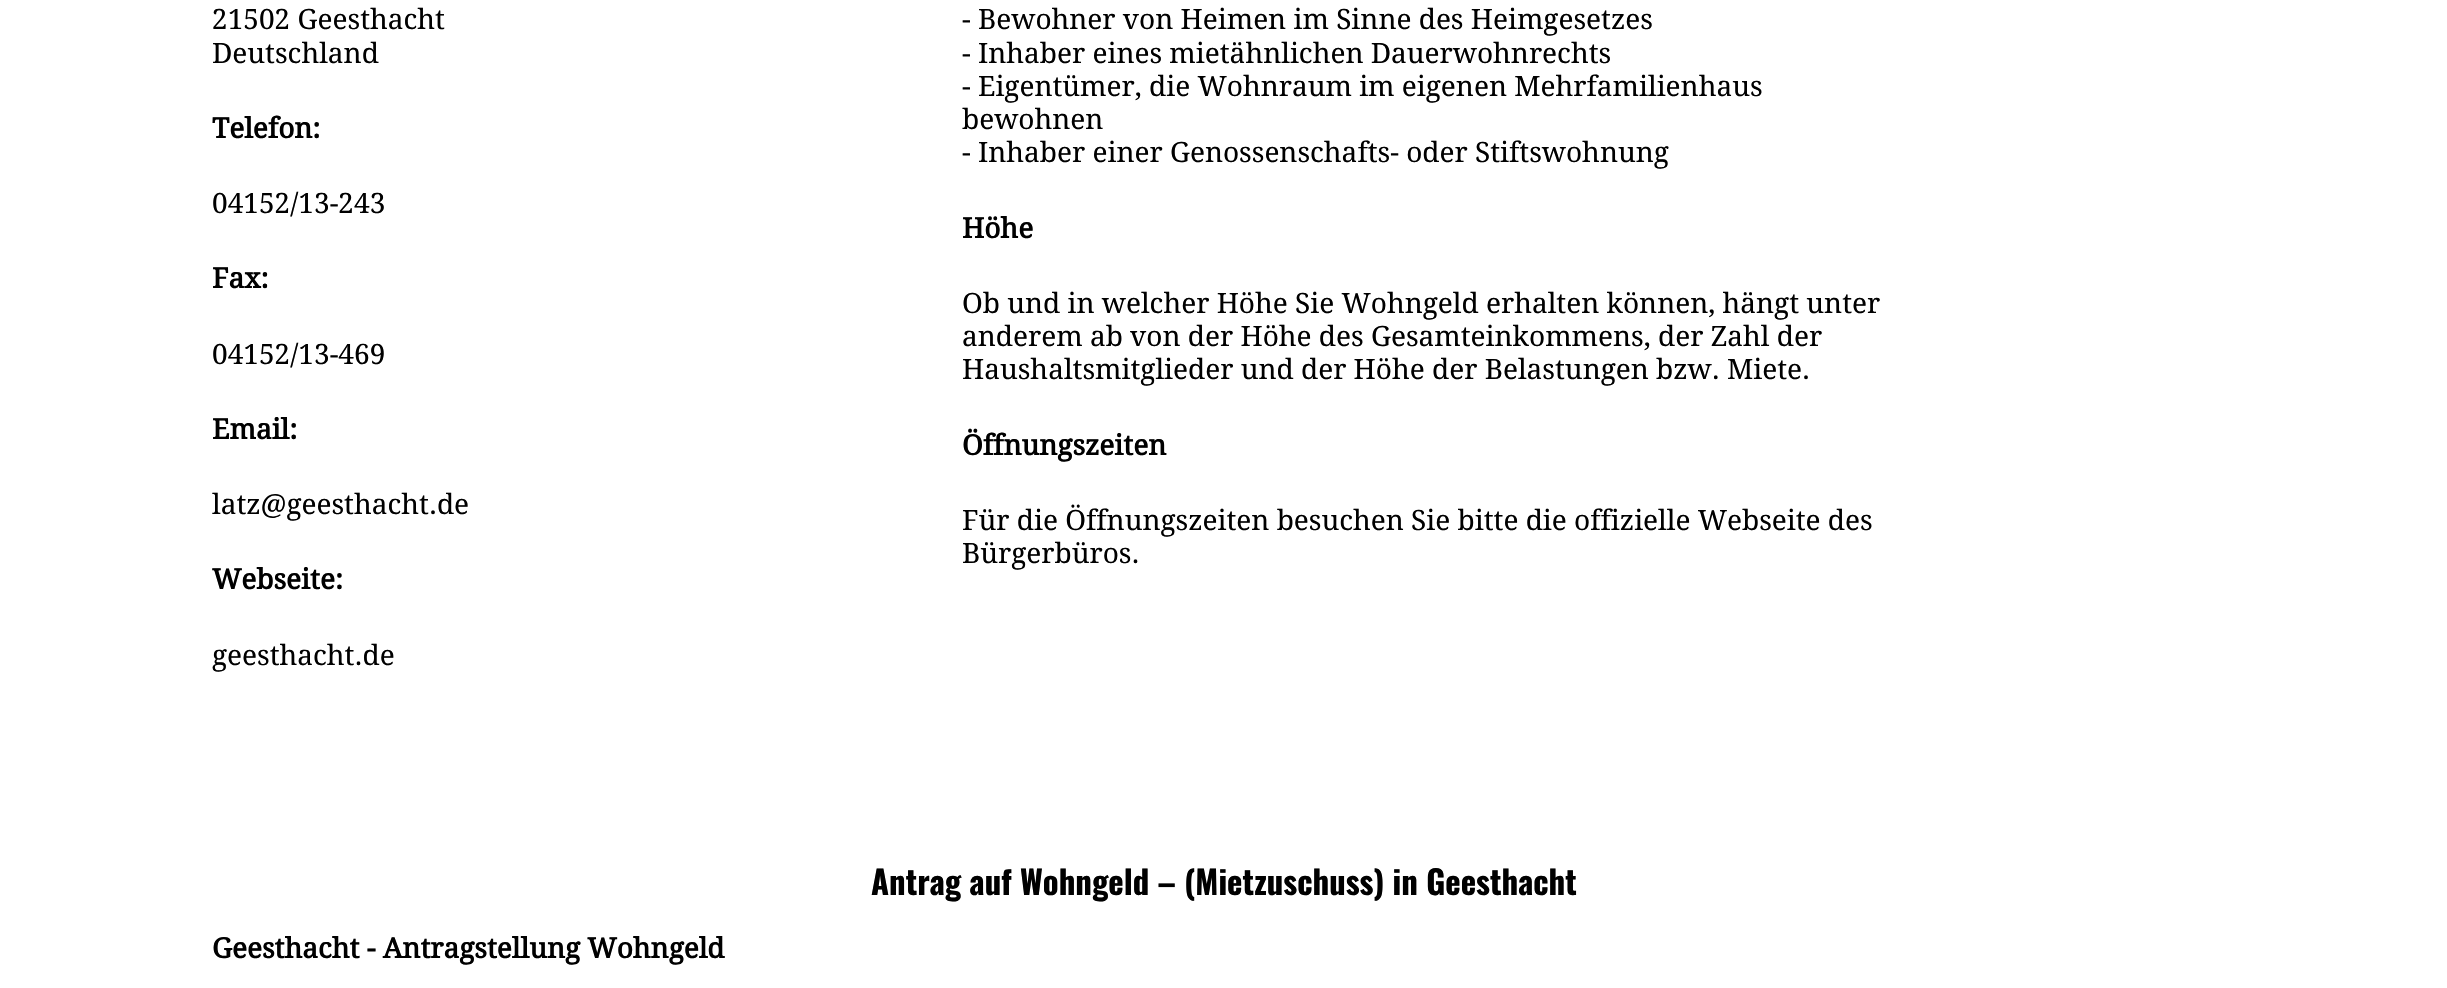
void draw(SkCanvas* canvas) {
	SkPaint fill;
	fill.setAntiAlias(true);
	auto makeFont = [&](const char* family, int weight, float size, bool italic = false) {
		SkFontStyle style(weight, SkFontStyle::kNormal_Width,
			italic ? SkFontStyle::kItalic_Slant : SkFontStyle::kUpright_Slant);
		SkFont result(fontMgr->matchFamilyStyle(family, style), size);
		result.setSubpixel(true);
		return result;
	};
	auto text = [&](const char* s, float x, float y, const SkFont& font) {
		canvas->drawString(s, x, y, font, fill);
	};
	canvas->clear(0xFFFFFFFF);
	auto font1 = makeFont("Droid Serif", 400, 28);
	fill.setColor(0xFF000000);
	text("21502 Geesthacht", 212, 29, font1);
	text("Deutschland", 212, 63, font1);
	auto font2 = makeFont("Droid Serif", 700, 28);
	text("Telefon:", 212, 138, font2);
	text("04152/13-243", 212, 213, font1);
	text("Fax:", 212, 288, font2);
	text("04152/13-469", 212, 364, font1);
	text("Email:", 212, 439, font2);
	text("latz@geesthacht.de", 212, 514, font1);
	text("Webseite:", 212, 589, font2);
	text("geesthacht.de", 212, 665, font1);
	text("- Bewohner von Heimen im Sinne des Heimgesetzes", 962, 29, font1);
	text("- Inhaber eines mietähnlichen Dauerwohnrechts", 962, 63, font1);
	text("- Eigentümer, die Wohnraum im eigenen Mehrfamilienhaus", 962, 96, font1);
	text("bewohnen", 962, 129, font1);
	text("- Inhaber einer Genossenschafts- oder Stiftswohnung", 962, 162, font1);
	text("Höhe", 962, 238, font2);
	text("Ob und in welcher Höhe Sie Wohngeld erhalten können, hängt unter", 962, 313, font1);
	text("anderem ab von der Höhe des Gesamteinkommens, der Zahl der", 962, 346, font1);
	text("Haushaltsmitglieder und der Höhe der Belastungen bzw. Miete.", 962, 379, font1);
	text("Öffnungszeiten", 962, 455, font2);
	text("Für die Öffnungszeiten besuchen Sie bitte die offizielle Webseite des", 962, 530, font1);
	text("Bürgerbüros.", 962, 563, font1);
	auto font3 = makeFont("Oswald", 700, 32.75f);
	text("Antrag auf Wohngeld – (Mietzuschuss) in Geesthacht", 871, 895, font3);
	text("Geesthacht - Antragstellung Wohngeld", 212, 958, font2);
}
